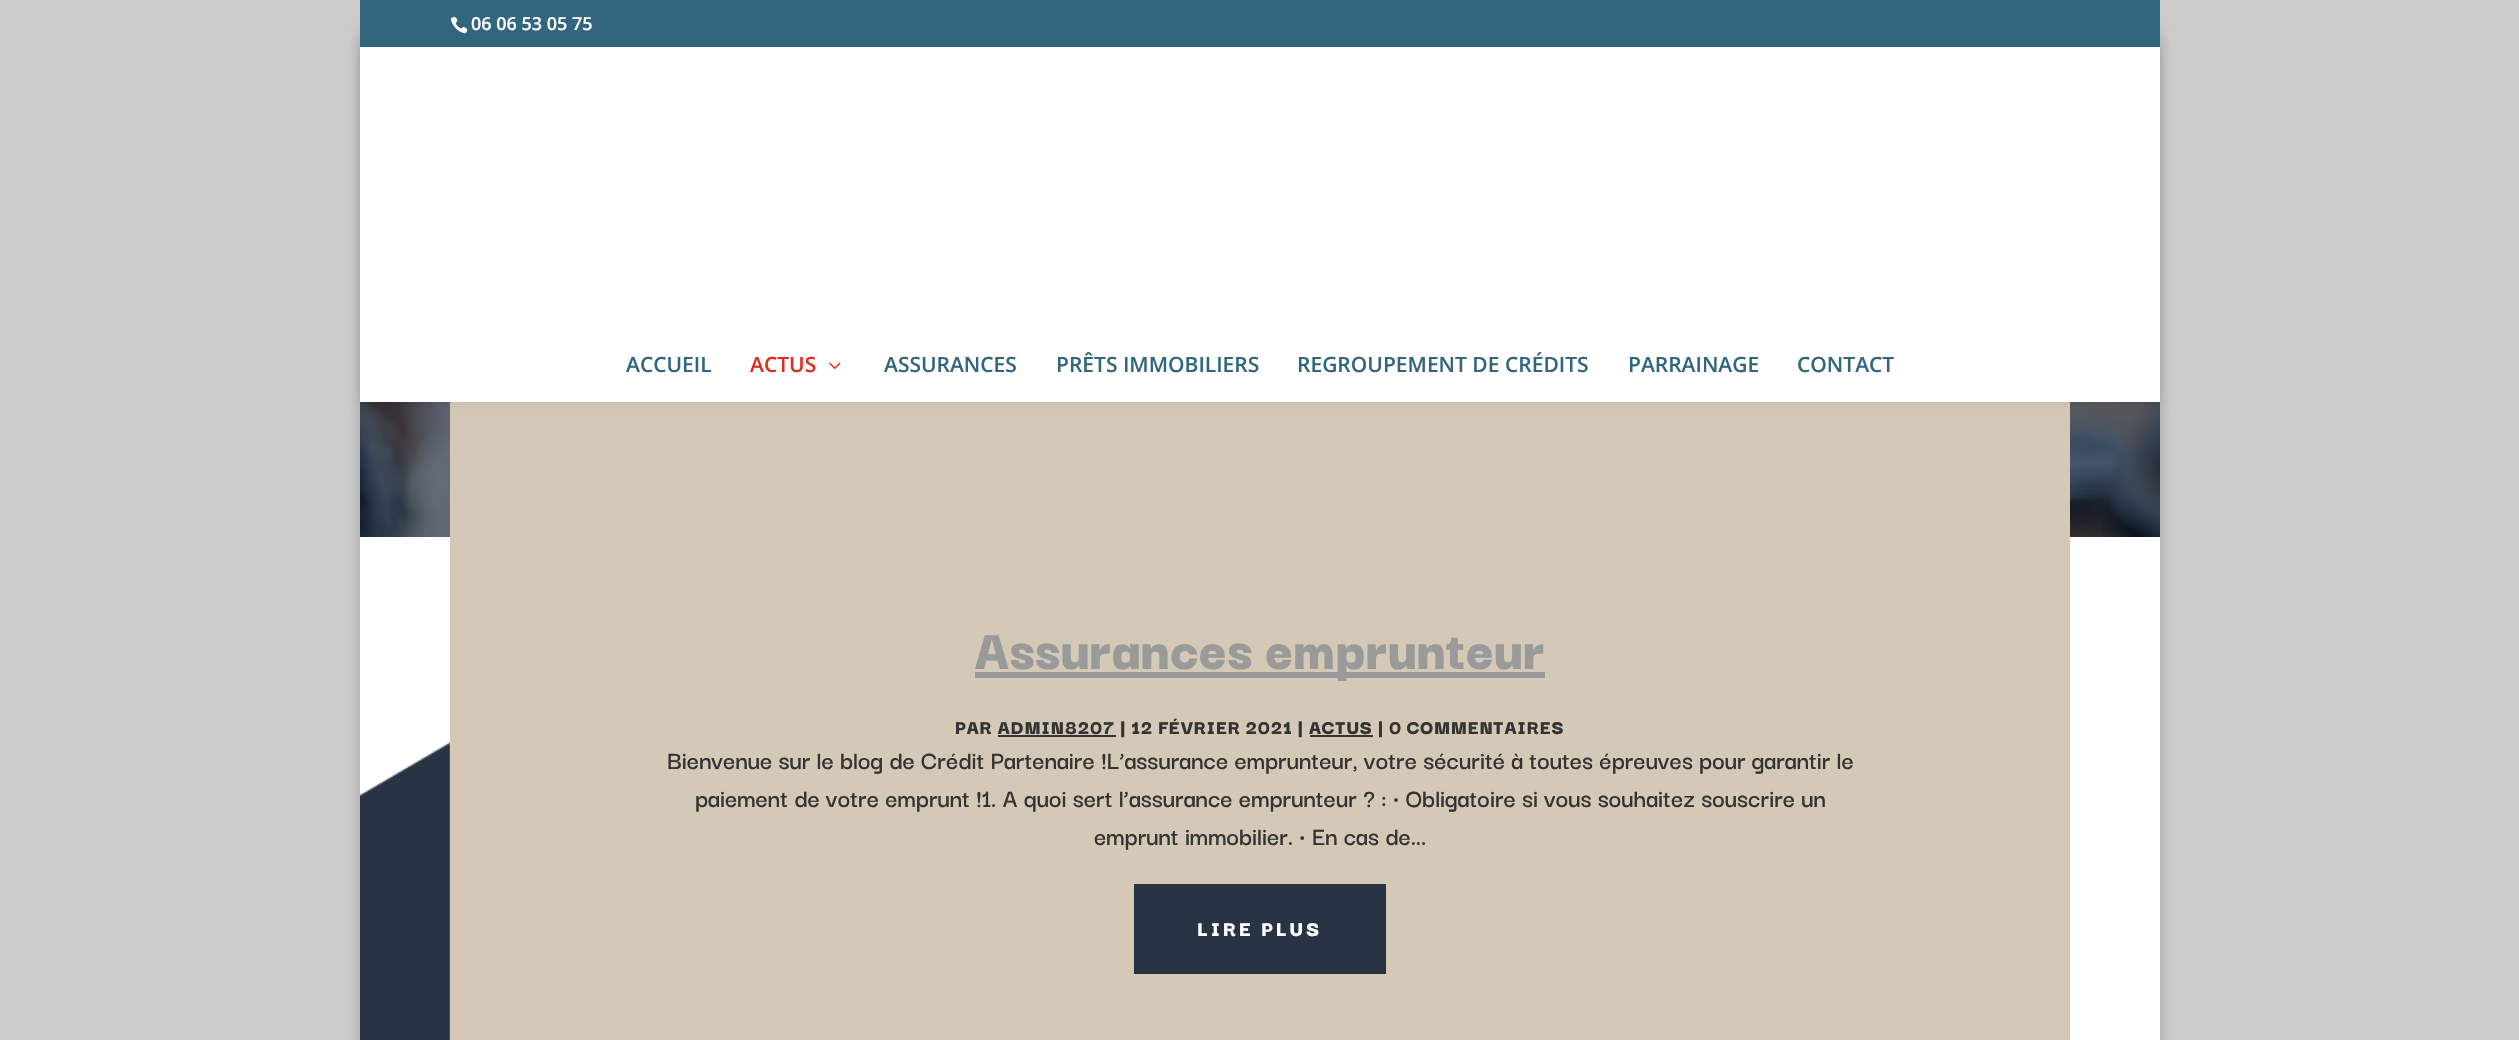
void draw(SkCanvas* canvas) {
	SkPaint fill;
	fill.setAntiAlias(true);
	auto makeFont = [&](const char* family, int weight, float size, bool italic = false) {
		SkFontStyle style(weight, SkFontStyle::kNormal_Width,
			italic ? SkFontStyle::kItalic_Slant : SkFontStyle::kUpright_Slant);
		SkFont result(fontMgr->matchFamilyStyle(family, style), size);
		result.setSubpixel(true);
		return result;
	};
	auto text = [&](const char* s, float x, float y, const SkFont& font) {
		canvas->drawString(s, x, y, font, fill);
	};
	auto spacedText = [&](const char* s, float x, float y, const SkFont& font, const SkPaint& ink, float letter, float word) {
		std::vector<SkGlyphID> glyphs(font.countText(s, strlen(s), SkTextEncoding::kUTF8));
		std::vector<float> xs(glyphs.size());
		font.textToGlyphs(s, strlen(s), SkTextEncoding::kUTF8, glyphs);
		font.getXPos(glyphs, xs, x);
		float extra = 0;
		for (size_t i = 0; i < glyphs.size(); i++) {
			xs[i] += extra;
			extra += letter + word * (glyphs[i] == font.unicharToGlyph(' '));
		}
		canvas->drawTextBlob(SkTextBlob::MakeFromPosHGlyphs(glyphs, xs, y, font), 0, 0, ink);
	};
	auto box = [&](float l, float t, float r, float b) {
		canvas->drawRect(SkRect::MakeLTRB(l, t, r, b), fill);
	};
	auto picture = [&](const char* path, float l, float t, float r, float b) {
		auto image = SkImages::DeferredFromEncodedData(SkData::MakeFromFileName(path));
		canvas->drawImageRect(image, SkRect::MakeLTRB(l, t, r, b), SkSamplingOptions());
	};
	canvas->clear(0xFFCDCDCD);
	fill.setColor(0x33000000);
	fill.setMaskFilter(SkMaskFilter::MakeBlur(kNormal_SkBlurStyle, 7.5f));
	canvas->drawRect(SkRect::MakeLTRB(360, 32, 2160, 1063), fill);
	fill.setMaskFilter(nullptr);
	picture("image2.png", 360, 402, 2160, 537);
	fill.setColor(0xFFFFFFFF);
	box(360, 537, 2160, 1040);
	fill.setColor(0xFFD4C9B7);
	box(450, 402, 2070, 1040);
	fill.setColor(0x1A000000);
	fill.setMaskFilter(SkMaskFilter::MakeBlur(kNormal_SkBlurStyle, 5));
	canvas->drawRect(SkRect::MakeLTRB(360, 47, 2160, 402), fill);
	fill.setMaskFilter(nullptr);
	fill.setColor(0xFF32667E);
	box(360, 0, 2160, 47);
	picture("image0.png", 450, 16, 468, 34);
	fill.setColor(0xFFFFFFFF);
	box(360, 47, 2160, 402);
	picture("image1.png", 829, 362, 841, 369);
	picture("image3.png", 360, 742, 450, 1040);
	fill.setColor(0xFF9A9A9A);
	box(975, 672, 1545, 678);
	fill.setColor(0xFF333333);
	box(998, 735, 1116, 737);
	box(1310, 735, 1373, 737);
	fill.setColor(0xFF283444);
	box(1134, 884, 1386, 974);
	auto font1 = makeFont("Open Sans", 600, 18);
	fill.setColor(0xFFFFFFFF);
	text("06 06 53 05 75", 471, 30, font1);
	auto font2 = makeFont("Open Sans", 600, 21);
	fill.setColor(0xFF32667E);
	text("ACCUEIL", 626, 372, font2);
	fill.setColor(0xFFE02B20);
	text("ACTUS", 750, 372, font2);
	fill.setColor(0xFF32667E);
	text("ASSURANCES", 884, 372, font2);
	text("PRÊTS IMMOBILIERS", 1056, 372, font2);
	text("REGROUPEMENT DE CRÉDITS", 1297, 372, font2);
	text("PARRAINAGE", 1628, 372, font2);
	text("CONTACT", 1797, 372, font2);
	auto font3 = makeFont("Darker Grotesque", 300, 60);
	fill.setColor(0xFF9A9A9A);
	text("Assurances emprunteur", 974, 669, font3);
	auto font4 = makeFont("Darker Grotesque", 300, 21);
	fill.setColor(0xFF333333);
	spacedText("PAR ADMIN8207 | 12 FÉVRIER 2021 | ACTUS | 0 COMMENTAIRES", 955, 734, font4, fill, 0.75f, 0);
	auto font5 = makeFont("Darker Grotesque", 600, 27);
	text("Bienvenue sur le blog de Crédit Partenaire !L’assurance emprunteur, votre sécurité à toutes épreuves pour garantir le", 667, 769, font5);
	text("paiement de votre emprunt !1. A quoi sert l’assurance emprunteur ? : • Obligatoire si vous souhaitez souscrire un", 695, 807, font5);
	text("emprunt immobilier. • En cas de...", 1094, 845, font5);
	auto font6 = makeFont("Darker Grotesque", 300, 22.5f);
	fill.setColor(0xFFFFFFFF);
	spacedText("LIRE PLUS", 1197, 936, font6, fill, 3, 0);
}
